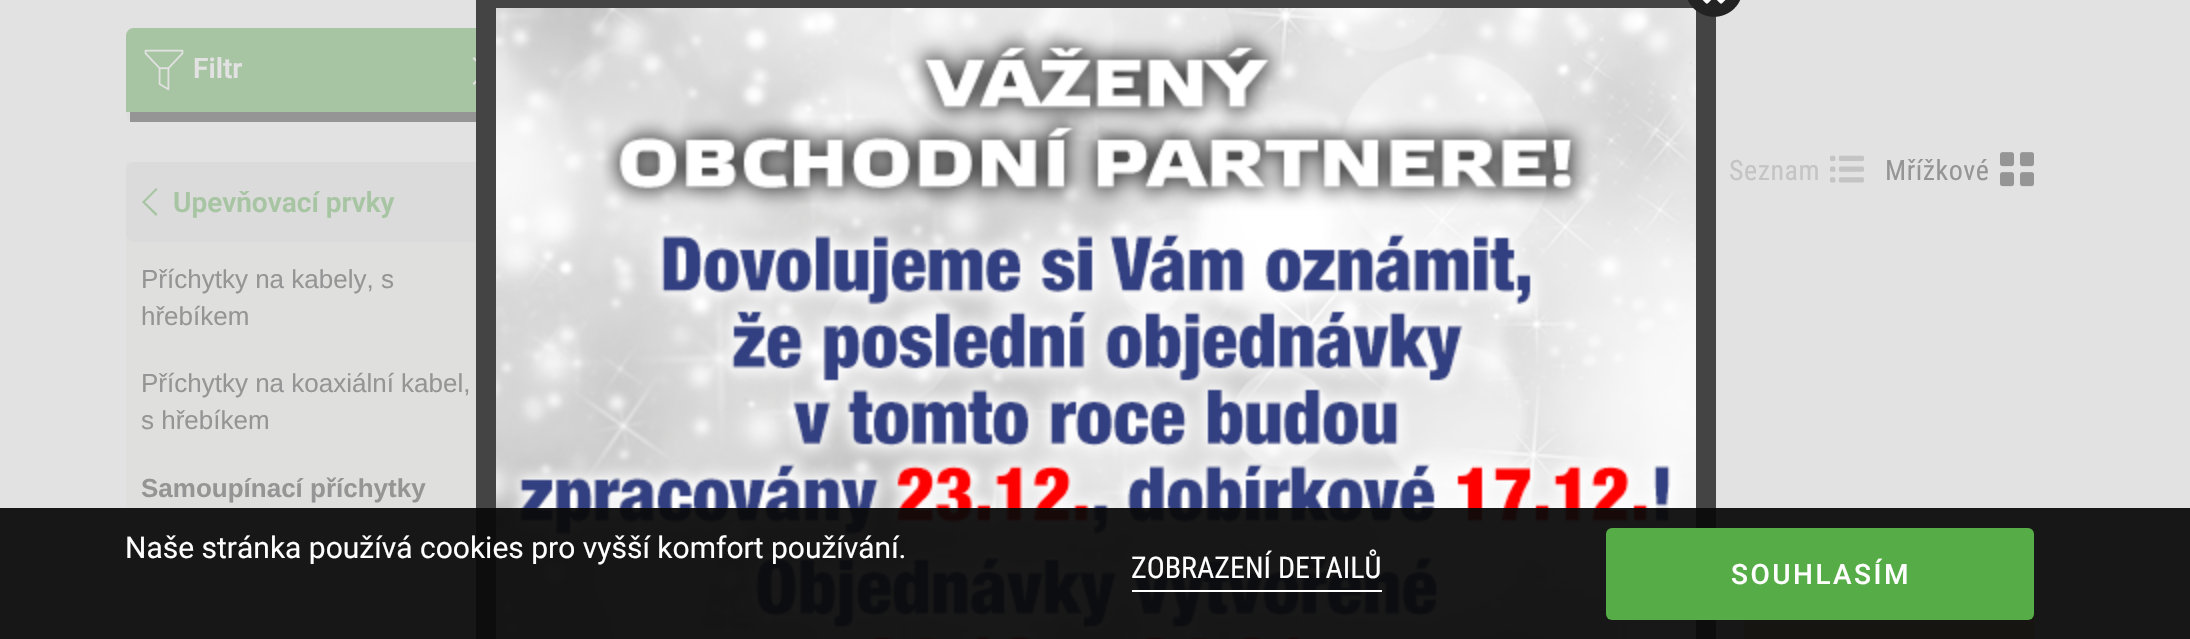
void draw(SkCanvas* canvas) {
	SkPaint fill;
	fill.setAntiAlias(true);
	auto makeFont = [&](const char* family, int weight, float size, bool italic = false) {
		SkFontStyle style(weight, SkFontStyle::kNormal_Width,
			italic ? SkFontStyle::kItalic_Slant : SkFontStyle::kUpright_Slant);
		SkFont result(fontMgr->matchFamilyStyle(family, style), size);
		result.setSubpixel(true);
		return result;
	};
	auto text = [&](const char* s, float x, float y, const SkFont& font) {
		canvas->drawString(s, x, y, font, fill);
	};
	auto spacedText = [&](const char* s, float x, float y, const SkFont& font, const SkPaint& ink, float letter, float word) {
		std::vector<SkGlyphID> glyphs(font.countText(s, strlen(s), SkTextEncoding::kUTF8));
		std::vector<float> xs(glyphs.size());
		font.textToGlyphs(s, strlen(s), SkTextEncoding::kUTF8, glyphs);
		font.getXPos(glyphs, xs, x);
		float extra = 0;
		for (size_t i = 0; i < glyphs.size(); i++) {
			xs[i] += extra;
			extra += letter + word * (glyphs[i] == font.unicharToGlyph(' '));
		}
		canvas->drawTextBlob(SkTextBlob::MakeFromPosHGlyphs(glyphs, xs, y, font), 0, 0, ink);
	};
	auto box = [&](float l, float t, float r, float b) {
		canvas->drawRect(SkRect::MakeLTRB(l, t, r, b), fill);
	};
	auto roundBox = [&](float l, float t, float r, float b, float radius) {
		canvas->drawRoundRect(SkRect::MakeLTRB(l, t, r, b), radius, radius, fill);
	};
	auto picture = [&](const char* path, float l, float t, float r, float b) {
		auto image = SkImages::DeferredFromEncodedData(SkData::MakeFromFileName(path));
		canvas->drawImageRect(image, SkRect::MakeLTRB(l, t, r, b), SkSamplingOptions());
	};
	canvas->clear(0xFFE2E2E2);
	fill.setColor(0xFFDFDFDF);
	roundBox(126, 28, 506, 122, 8);
	fill.setColor(0xFF959595);
	box(130, 112, 476, 122);
	fill.setColor(0xFFA7C5A2);
	canvas->drawPath(SkPathBuilder().moveTo(134, 28).lineTo(498, 28).cubicTo(502.5f, 28, 506, 31.5f, 506, 36).lineTo(506, 112).lineTo(126, 112).lineTo(126, 36).cubicTo(126, 31.5f, 129.5f, 28, 134, 28).close().detach(), fill);
	picture("image0.png", 144, 49, 184, 91);
	fill.setColor(0xFFE2E2E2);
	canvas->drawPath(SkPathBuilder().moveTo(485.5f, 71).lineTo(472.5f, 83.5f).lineTo(474, 85).lineTo(488.5f, 71).lineTo(474, 57).lineTo(472.5f, 58.5f).close().detach(), fill);
	fill.setColor(0xFFDFDFDE);
	box(126, 162, 476, 639);
	fill.setColor(0xFFDBDBDB);
	roundBox(126, 162, 506, 242, 8);
	fill.setColor(0xFFA7C5A2);
	canvas->drawPath(SkPathBuilder().moveTo(145, 202).lineTo(157.5f, 189.5f).lineTo(156, 188).lineTo(142, 202).lineTo(156, 216).lineTo(157.5f, 214).close().detach(), fill);
	fill.setStyle(SkPaint::kStroke_Style);
	fill.setStrokeWidth(20);
	fill.setColor(0xFF444444);
	canvas->drawRect(SkRect::MakeLTRB(486, -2, 1706, 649), fill);
	fill.setStyle(SkPaint::kFill_Style);
	fill.setColor(0xFFFFFFFF);
	box(1696, 0, 1736, 8);
	picture("image2.png", 496, 8, 1696, 639);
	picture("image1.png", 1688, 0, 1741, 17);
	picture("image3.png", 1830, 155, 1864, 183);
	picture("image4.png", 2000, 152, 2034, 187);
	fill.setColor(0xFFDEC08F);
	box(1744, 614, 2034, 639);
	fill.setColor(0xF00A0A0A);
	box(0, 508, 2190, 639);
	fill.setColor(0xFFFFFFFF);
	box(1132, 590, 1382, 592);
	fill.setColor(0xFF56AC46);
	roundBox(1606, 528, 2034, 620, 6);
	auto font1 = makeFont("Roboto", 600, 28);
	fill.setColor(0xFFE2E2E2);
	text("Filtr", 193, 78, font1);
	fill.setColor(0xFFA7C5A2);
	text("Upevňovací prvky", 173, 212, font1);
	auto font2 = makeFont("Liberation Sans", 400, 26);
	fill.setColor(0xFF959595);
	text("Příchytky na kabely, s", 141, 288, font2);
	text("hřebíkem", 141, 325, font2);
	text("Příchytky na koaxiální kabel,", 141, 392, font2);
	text("s hřebíkem", 141, 429, font2);
	auto font3 = makeFont("Liberation Sans", 700, 26);
	text("Samoupínací příchytky", 141, 497, font3);
	auto font4 = makeFont("Roboto Condensed", 400, 28);
	fill.setColor(0xFFC4C4C4);
	spacedText("Seznam", 1729, 180, font4, fill, 0.5f, 0);
	fill.setColor(0xFF959595);
	spacedText("Mřížkové", 1885, 180, font4, fill, 0.5f, 0);
	auto font5 = makeFont("Roboto", 400, 30);
	fill.setColor(0xFFFFFFFF);
	text("Naše stránka používá cookies pro vyšší komfort používání.", 125, 558, font5);
	auto font6 = makeFont("Roboto Condensed", 400, 30);
	text("ZOBRAZENÍ DETAILŮ", 1131, 578, font6);
	auto font7 = makeFont("Roboto", 500, 28);
	spacedText("SOUHLASÍM", 1731, 584, font7, fill, 2.5f, 0);
}
